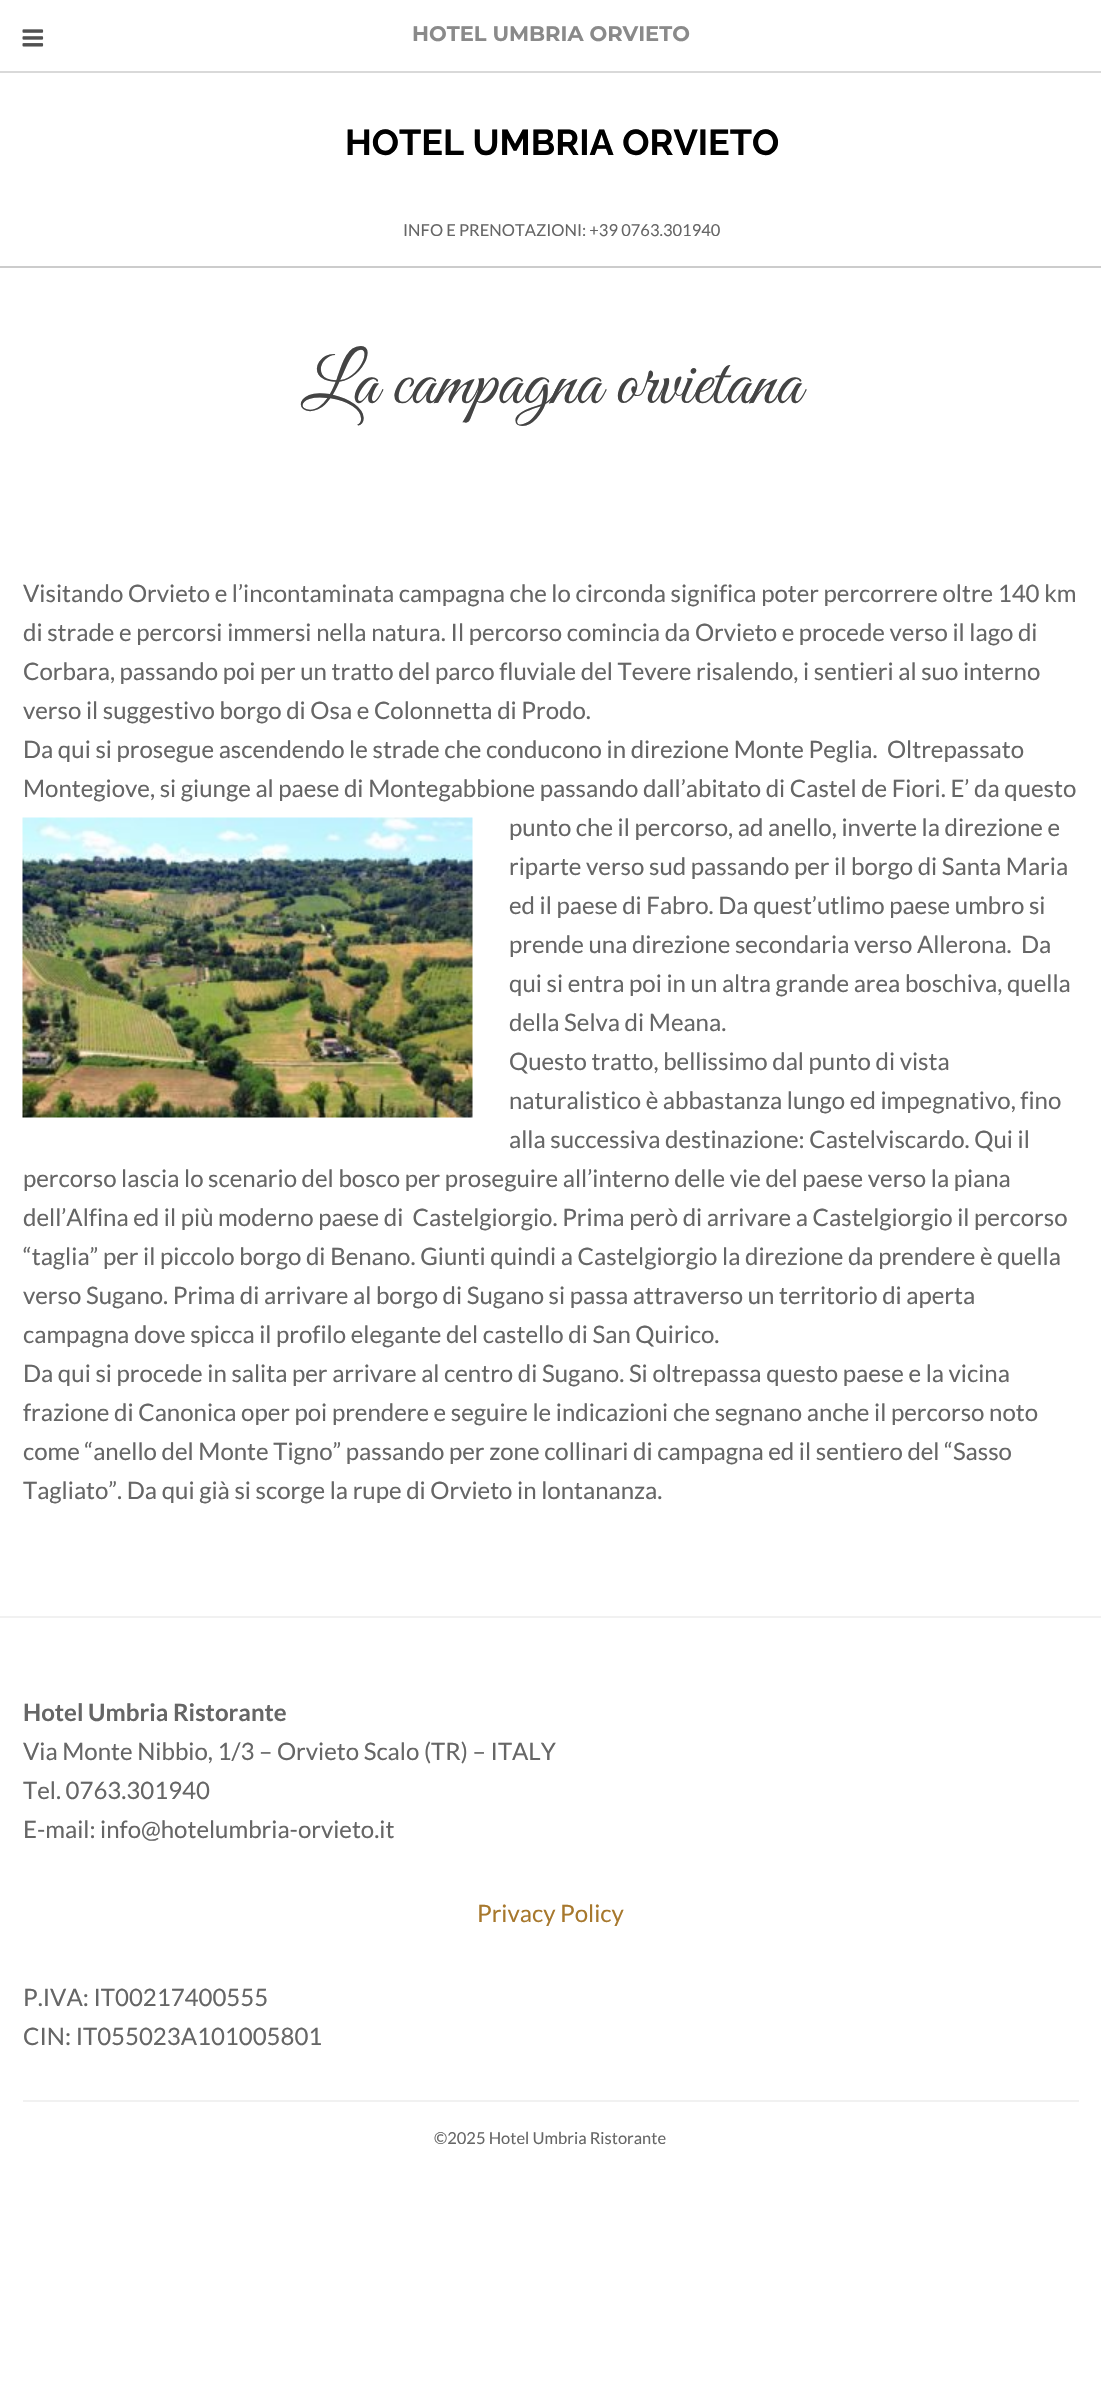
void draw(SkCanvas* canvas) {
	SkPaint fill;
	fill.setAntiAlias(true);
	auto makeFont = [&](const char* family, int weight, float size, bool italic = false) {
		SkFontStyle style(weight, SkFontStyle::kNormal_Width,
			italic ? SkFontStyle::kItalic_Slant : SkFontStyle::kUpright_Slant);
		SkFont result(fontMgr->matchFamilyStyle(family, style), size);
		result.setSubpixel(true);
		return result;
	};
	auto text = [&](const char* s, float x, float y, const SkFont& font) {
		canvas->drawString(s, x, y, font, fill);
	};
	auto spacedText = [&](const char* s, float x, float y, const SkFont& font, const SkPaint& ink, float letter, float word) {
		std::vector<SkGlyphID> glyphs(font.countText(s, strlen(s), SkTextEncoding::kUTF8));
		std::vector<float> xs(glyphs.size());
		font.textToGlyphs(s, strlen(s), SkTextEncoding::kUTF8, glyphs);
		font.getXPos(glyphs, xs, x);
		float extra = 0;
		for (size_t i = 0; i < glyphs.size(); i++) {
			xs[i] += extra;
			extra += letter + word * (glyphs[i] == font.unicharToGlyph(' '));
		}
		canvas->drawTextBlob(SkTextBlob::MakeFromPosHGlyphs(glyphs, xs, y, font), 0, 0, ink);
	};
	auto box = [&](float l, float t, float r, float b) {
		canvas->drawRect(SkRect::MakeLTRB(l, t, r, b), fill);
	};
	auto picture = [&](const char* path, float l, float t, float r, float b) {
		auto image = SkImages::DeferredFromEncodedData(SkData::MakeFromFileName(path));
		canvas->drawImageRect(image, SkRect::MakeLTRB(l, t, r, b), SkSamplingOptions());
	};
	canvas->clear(0xFFFFFFFF);
	fill.setColor(0xFFD9D9D9);
	box(0, 71, 1101, 73);
	picture("image0.png", 22, 29, 44, 47);
	fill.setColor(0xFFCCCCCC);
	box(0, 266, 1101, 268);
	picture("image1.png", 22, 817, 473, 1118);
	fill.setColor(0xFFF1F1F1);
	box(0, 1616, 1101, 1618);
	box(23, 2100, 1079, 2102);
	auto font1 = makeFont("Montserrat", 700, 21);
	fill.setColor(0xFF8A8A8A);
	text("HOTEL UMBRIA ORVIETO", 412, 41, font1);
	auto font2 = makeFont("Raleway", 700, 36);
	fill.setColor(0xFF000000);
	text("HOTEL UMBRIA ORVIETO", 345, 155, font2);
	auto font3 = makeFont("Lato", 400, 16.5f);
	fill.setColor(0xFF666666);
	text("INFO E PRENOTAZIONI: +39 0763.301940", 403, 236, font3);
	auto font4 = makeFont("Great Vibes", 400, 72);
	fill.setColor(0xFF444444);
	spacedText("La campagna orvietana", 301, 403, font4, fill, 0, 1);
	auto font5 = makeFont("Lato", 400, 24);
	fill.setColor(0xFF666666);
	text("Visitando Orvieto e l’incontaminata campagna che lo circonda significa poter percorrere oltre 140 km", 23, 602, font5);
	text("di strade e percorsi immersi nella natura. Il percorso comincia da Orvieto e procede verso il lago di", 23, 641, font5);
	text("Corbara, passando poi per un tratto del parco fluviale del Tevere risalendo, i sentieri al suo interno", 23, 680, font5);
	text("verso il suggestivo borgo di Osa e Colonnetta di Prodo.", 23, 719, font5);
	text("Da qui si prosegue ascendendo le strade che conducono in direzione Monte Peglia.  Oltrepassato", 23, 758, font5);
	text("Montegiove, si giunge al paese di Montegabbione passando dall’abitato di Castel de Fiori. E’ da questo", 23, 797, font5);
	text("punto che il percorso, ad anello, inverte la direzione e", 509, 836, font5);
	text("riparte verso sud passando per il borgo di Santa Maria", 509, 875, font5);
	text("ed il paese di Fabro. Da quest’utlimo paese umbro si", 509, 914, font5);
	text("prende una direzione secondaria verso Allerona.  Da", 509, 953, font5);
	text("qui si entra poi in un altra grande area boschiva, quella", 509, 992, font5);
	text("della Selva di Meana.", 509, 1031, font5);
	text("Questo tratto, bellissimo dal punto di vista", 509, 1070, font5);
	text("naturalistico è abbastanza lungo ed impegnativo, fino", 509, 1109, font5);
	text("alla successiva destinazione: Castelviscardo. Qui il", 509, 1148, font5);
	text("percorso lascia lo scenario del bosco per proseguire all’interno delle vie del paese verso la piana", 23, 1187, font5);
	text("dell’Alfina ed il più moderno paese di  Castelgiorgio. Prima però di arrivare a Castelgiorgio il percorso", 23, 1226, font5);
	text("“taglia” per il piccolo borgo di Benano. Giunti quindi a Castelgiorgio la direzione da prendere è quella", 23, 1265, font5);
	text("verso Sugano. Prima di arrivare al borgo di Sugano si passa attraverso un territorio di aperta", 23, 1304, font5);
	text("campagna dove spicca il profilo elegante del castello di San Quirico.", 23, 1343, font5);
	text("Da qui si procede in salita per arrivare al centro di Sugano. Si oltrepassa questo paese e la vicina", 23, 1382, font5);
	text("frazione di Canonica oper poi prendere e seguire le indicazioni che segnano anche il percorso noto", 23, 1421, font5);
	text("come “anello del Monte Tigno” passando per zone collinari di campagna ed il sentiero del “Sasso", 23, 1460, font5);
	text("Tagliato”. Da qui già si scorge la rupe di Orvieto in lontananza.", 23, 1499, font5);
	auto font6 = makeFont("Lato", 700, 24);
	text("Hotel Umbria Ristorante", 23, 1721, font6);
	text("Via Monte Nibbio, 1/3 – Orvieto Scalo (TR) – ITALY", 23, 1760, font5);
	text("Tel. 0763.301940", 23, 1799, font5);
	text("E-mail: info@hotelumbria-orvieto.it", 23, 1838, font5);
	fill.setColor(0xFFA7782D);
	text("Privacy Policy", 477, 1922, font5);
	fill.setColor(0xFF666666);
	text("P.IVA: IT00217400555", 23, 2006, font5);
	text("CIN: IT055023A101005801", 23, 2045, font5);
	text("©2025 Hotel Umbria Ristorante", 434, 2144, font3);
}
